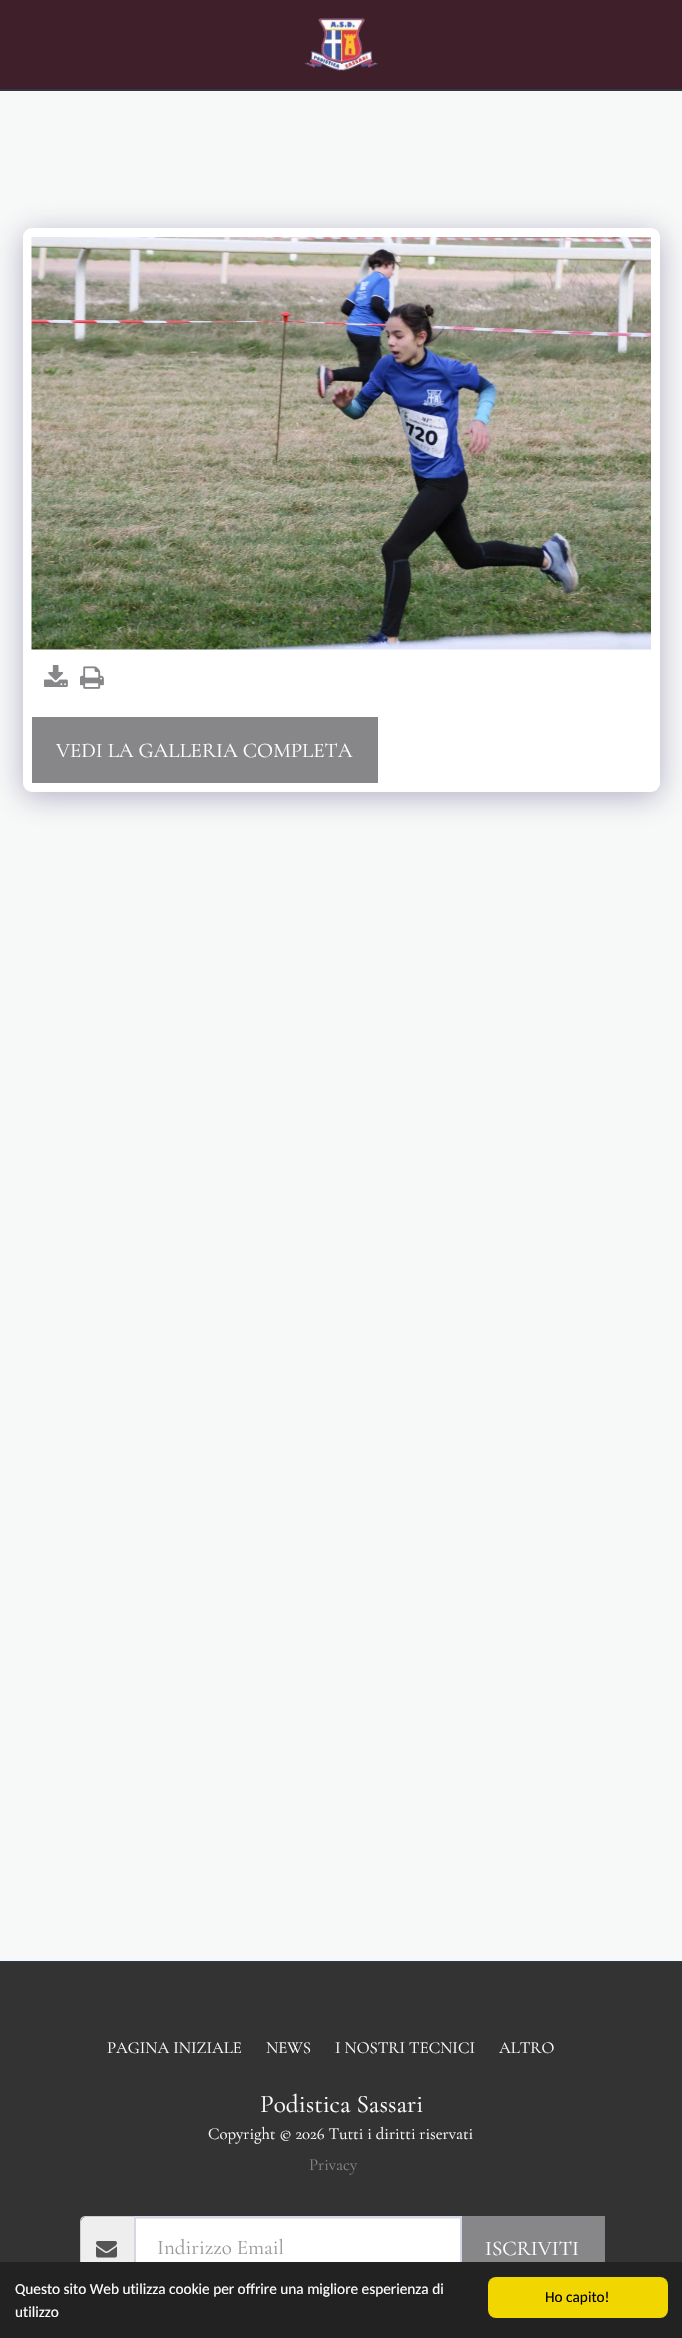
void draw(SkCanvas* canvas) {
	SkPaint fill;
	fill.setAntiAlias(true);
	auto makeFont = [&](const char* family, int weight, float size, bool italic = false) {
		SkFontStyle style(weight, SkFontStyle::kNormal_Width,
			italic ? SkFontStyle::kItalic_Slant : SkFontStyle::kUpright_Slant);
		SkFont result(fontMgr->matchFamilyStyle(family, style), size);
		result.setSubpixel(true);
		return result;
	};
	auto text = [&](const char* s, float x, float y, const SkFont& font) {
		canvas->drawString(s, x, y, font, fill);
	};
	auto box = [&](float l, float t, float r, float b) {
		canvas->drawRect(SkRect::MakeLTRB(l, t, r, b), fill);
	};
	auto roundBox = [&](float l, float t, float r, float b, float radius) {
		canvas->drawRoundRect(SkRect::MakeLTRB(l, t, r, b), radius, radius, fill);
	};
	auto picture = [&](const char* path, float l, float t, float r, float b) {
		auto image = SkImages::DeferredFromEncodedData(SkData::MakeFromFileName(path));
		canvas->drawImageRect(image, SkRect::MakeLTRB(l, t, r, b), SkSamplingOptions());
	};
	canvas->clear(0xFFF7F9F8);
	fill.setColor(0xFF3F202A);
	box(0, 0, 682, 89);
	fill.setColor(0xFF303841);
	box(0, 89, 682, 91);
	picture("image0.png", 304, 18, 378, 71);
	fill.setColor(0x664D3F7A);
	fill.setMaskFilter(SkMaskFilter::MakeBlur(kNormal_SkBlurStyle, 15));
	canvas->drawRoundRect(SkRect::MakeLTRB(23, 233, 660, 797), 9, 9, fill);
	fill.setMaskFilter(nullptr);
	fill.setColor(0xFFFFFFFF);
	roundBox(23, 228, 660, 792, 9);
	picture("image1.png", 31, 237, 651, 650);
	picture("image2.png", 44, 665, 68, 687);
	picture("image3.png", 80, 666, 104, 689);
	fill.setColor(0xFF878789);
	box(32, 717, 378, 783);
	fill.setColor(0xFF333333);
	box(0, 1963, 682, 2262);
	fill.setColor(0xFF303841);
	box(0, 1961, 682, 1963);
	fill.setColor(0xFFEEEEEE);
	canvas->drawPath(SkPathBuilder().moveTo(86, 2217).lineTo(134, 2217).lineTo(134, 2280).lineTo(86, 2280).cubicTo(83, 2280, 81, 2278, 81, 2275).lineTo(81, 2222).cubicTo(81, 2219, 83, 2217, 86, 2217).close().detach(), fill);
	fill.setColor(0xFFCCCCCC);
	canvas->drawPath(SkPathBuilder(SkPathFillType::kEvenOdd).moveTo(86, 2216).lineTo(134, 2216).lineTo(134, 2282).lineTo(86, 2282).cubicTo(82, 2282, 80, 2279, 80, 2276).lineTo(80, 2222).cubicTo(80, 2218, 82, 2216, 86, 2216).close().moveTo(86, 2217).lineTo(134, 2217).lineTo(134, 2280).lineTo(86, 2280).cubicTo(83, 2280, 81, 2278, 81, 2276).lineTo(81, 2222).cubicTo(81, 2219, 83, 2217, 86, 2217).close().detach(), fill);
	picture("image4.png", 96, 2241, 117, 2258);
	fill.setColor(0xFFFFFFFF);
	box(136, 2219, 460, 2262);
	fill.setColor(0xFFECECEC);
	box(135, 2218, 461, 2219);
	fill.setStyle(SkPaint::kStroke_Style);
	fill.setStrokeWidth(2);
	fill.setColor(0xFFD4D7E5);
	canvas->drawRect(SkRect::MakeLTRB(135, 2217, 461, 2281), fill);
	fill.setStyle(SkPaint::kFill_Style);
	fill.setColor(0xFF878789);
	box(462, 2216, 605, 2262);
	fill.setColor(0xFF222222);
	box(0, 2262, 682, 2338);
	fill.setColor(0xFFF1D600);
	roundBox(488, 2277, 668, 2318, 8);
	auto font1 = makeFont("Cormorant Garamond", 400, 21);
	fill.setColor(0xFFFFFFFF);
	text("VEDI LA GALLERIA COMPLETA", 56, 757, font1);
	auto font2 = makeFont("Cormorant Garamond", 400, 16.75f);
	text("PAGINA INIZIALE", 107, 2053, font2);
	text("NEWS", 266, 2053, font2);
	text("I NOSTRI TECNICI", 335, 2053, font2);
	text("ALTRO", 499, 2053, font2);
	auto font3 = makeFont("Cormorant Garamond", 400, 25.25f);
	text("Podistica Sassari", 260, 2112, font3);
	text("Copyright © 2026 Tutti i diritti riservati", 208, 2139, font2);
	fill.setColor(0xFF878789);
	text("Privacy", 309, 2170, font2);
	fill.setColor(0xFF999999);
	text("Indirizzo Email", 157, 2254, font1);
	fill.setColor(0xFFFFFFFF);
	text("ISCRIVITI", 485, 2255, font1);
	auto font4 = makeFont("Carlito", 400, 15.3f);
	text("Questo sito Web utilizza cookie per offrire una migliore esperienza di", 15, 2294, font4);
	text("utilizzo", 15, 2317, font4);
	fill.setColor(0xFF000000);
	text("Ho capito!", 545, 2302, font4);
}
